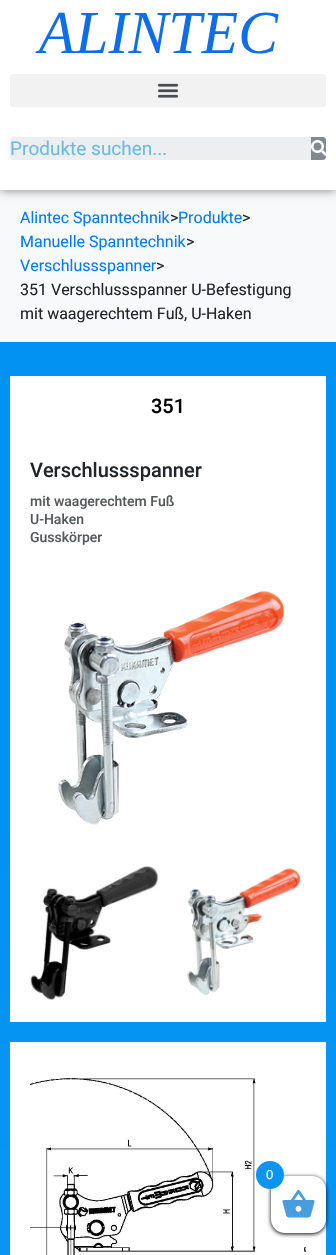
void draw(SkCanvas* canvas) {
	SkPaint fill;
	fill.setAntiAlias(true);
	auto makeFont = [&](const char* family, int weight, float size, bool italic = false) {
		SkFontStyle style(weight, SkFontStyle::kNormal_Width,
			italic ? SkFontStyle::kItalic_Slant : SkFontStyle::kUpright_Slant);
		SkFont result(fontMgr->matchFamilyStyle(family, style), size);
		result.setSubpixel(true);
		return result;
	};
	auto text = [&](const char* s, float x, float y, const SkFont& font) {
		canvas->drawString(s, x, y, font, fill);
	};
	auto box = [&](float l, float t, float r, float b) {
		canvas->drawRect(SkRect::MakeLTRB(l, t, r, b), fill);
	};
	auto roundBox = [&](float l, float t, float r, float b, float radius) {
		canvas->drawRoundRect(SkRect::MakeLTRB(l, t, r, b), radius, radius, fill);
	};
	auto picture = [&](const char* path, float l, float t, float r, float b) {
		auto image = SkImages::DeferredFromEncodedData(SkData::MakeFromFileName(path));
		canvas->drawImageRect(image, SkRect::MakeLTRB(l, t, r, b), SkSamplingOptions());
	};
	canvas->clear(0xFFF8F9FA);
	fill.setColor(0x80000000);
	fill.setMaskFilter(SkMaskFilter::MakeBlur(kNormal_SkBlurStyle, 5));
	canvas->drawRect(SkRect::MakeLTRB(0, 0, 336, 190), fill);
	fill.setMaskFilter(nullptr);
	fill.setColor(0xFFFFFFFF);
	box(0, 0, 336, 190);
	picture("image0.png", 35, 12, 279, 54);
	fill.setColor(0xFFF2F2F2);
	roundBox(10, 74, 326, 107, 3);
	picture("image1.png", 157, 83, 179, 98);
	fill.setColor(0xFFECEEEF);
	roundBox(10, 137, 326, 160, 3);
	fill.setColor(0xFF818A91);
	canvas->drawPath(SkPathBuilder().moveTo(311, 137).lineTo(323, 137).cubicTo(324.5f, 137, 326, 138.5f, 326, 140).lineTo(326, 157).cubicTo(326, 158.5f, 324.5f, 160, 323, 160).lineTo(311, 160).close().detach(), fill);
	picture("image2.png", 311, 140, 326, 156);
	{
		const SkColor colors[] = {0xFF0292F2, 0xFF48AEF1};
		const float stops[] = {0.1f, 0.89f};
		const SkPoint ends[] = {{168, 342}, {168, 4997}};
		fill.setShader(SkGradientShader::MakeLinear(ends, colors, stops, 2, SkTileMode::kClamp));
		fill.setAlpha(255);
	}
	box(0, 342, 336, 1255);
	fill.setShader(nullptr);
	fill.setColor(0xFFFFFFFF);
	box(10, 376, 326, 1022);
	picture("image3.png", 58, 591, 285, 825);
	picture("image4.png", 30, 865, 159, 1000);
	picture("image5.png", 187, 868, 301, 995);
	box(10, 1042, 326, 1255);
	picture("image6.png", 30, 1078, 306, 1255);
	fill.setColor(0xFF000000);
	fill.setMaskFilter(SkMaskFilter::MakeBlur(kNormal_SkBlurStyle, 2));
	canvas->drawRoundRect(SkRect::MakeLTRB(271, 1177, 326, 1234), 14, 14, fill);
	fill.setMaskFilter(nullptr);
	fill.setColor(0xFFFFFFFF);
	roundBox(271, 1176, 326, 1233, 14);
	fill.setColor(0xFF0B95F1);
	canvas->drawCircle(270, 1175, 14, fill);
	picture("image7.png", 282, 1189, 315, 1218);
	auto font1 = makeFont("Roboto", 400, 19);
	fill.setColor(0xFF6BBCDE);
	text("Produkte suchen...", 10, 155, font1);
	auto font2 = makeFont("Roboto", 400, 16);
	fill.setColor(0xFF007BFF);
	text("Alintec Spanntechnik", 20, 223, font2);
	fill.setColor(0xFF212529);
	text(">", 170, 223, font2);
	fill.setColor(0xFF007BFF);
	text("Produkte", 178, 223, font2);
	fill.setColor(0xFF212529);
	text(">", 242, 223, font2);
	fill.setColor(0xFF007BFF);
	text("Manuelle Spanntechnik", 20, 247, font2);
	fill.setColor(0xFF212529);
	text(">", 186, 247, font2);
	fill.setColor(0xFF007BFF);
	text("Verschlussspanner", 20, 271, font2);
	fill.setColor(0xFF212529);
	text(">", 156, 271, font2);
	text("351 Verschlussspanner U-Befestigung", 20, 295, font2);
	text("mit waagerechtem Fuß, U-Haken", 20, 319, font2);
	auto font3 = makeFont("Roboto", 500, 20);
	fill.setColor(0xFF000000);
	text("351", 151, 413, font3);
	fill.setColor(0xFF212529);
	text("Verschlussspanner", 30, 477, font3);
	auto font4 = makeFont("Roboto", 500, 14);
	fill.setColor(0xFF56595B);
	text("mit waagerechtem Fuß", 30, 506, font4);
	text("U-Haken", 30, 524, font4);
	text("Gusskörper", 30, 542, font4);
	auto font5 = makeFont("Liberation Sans", 400, 13);
	fill.setColor(0xFFFFFFFF);
	text("0", 266, 1179, font5);
}
